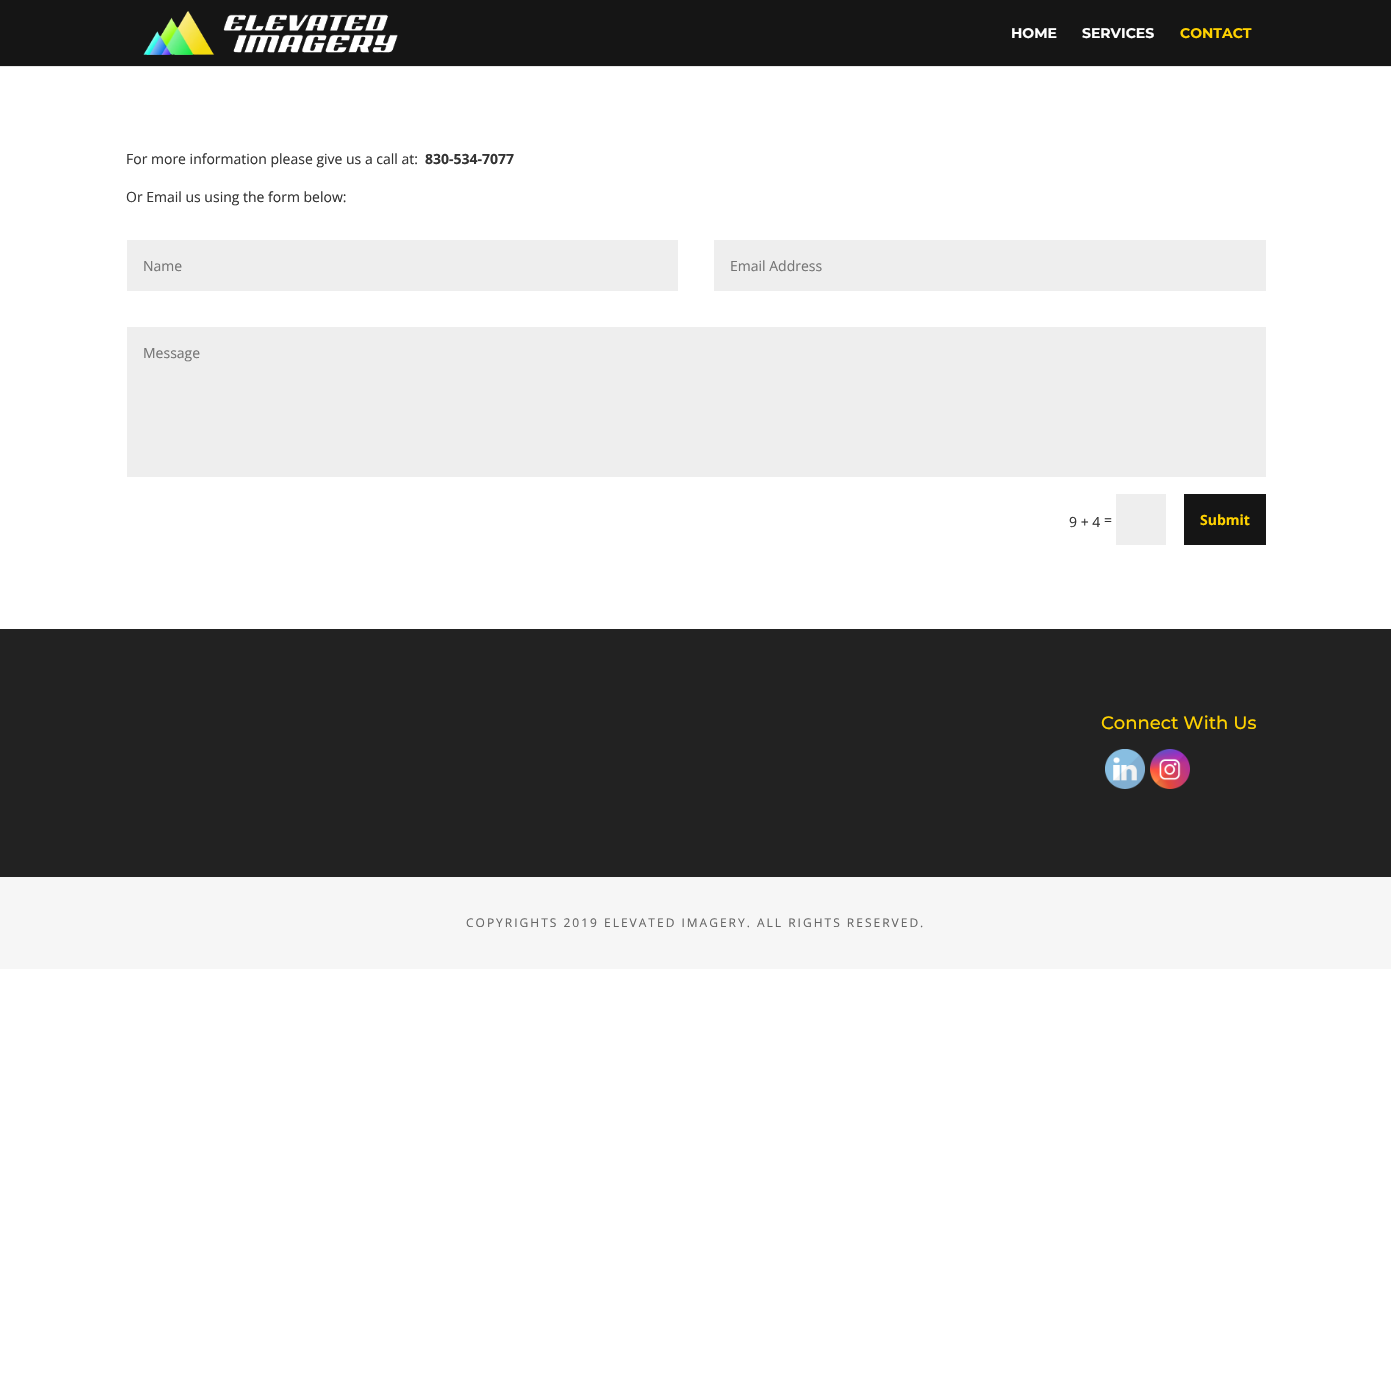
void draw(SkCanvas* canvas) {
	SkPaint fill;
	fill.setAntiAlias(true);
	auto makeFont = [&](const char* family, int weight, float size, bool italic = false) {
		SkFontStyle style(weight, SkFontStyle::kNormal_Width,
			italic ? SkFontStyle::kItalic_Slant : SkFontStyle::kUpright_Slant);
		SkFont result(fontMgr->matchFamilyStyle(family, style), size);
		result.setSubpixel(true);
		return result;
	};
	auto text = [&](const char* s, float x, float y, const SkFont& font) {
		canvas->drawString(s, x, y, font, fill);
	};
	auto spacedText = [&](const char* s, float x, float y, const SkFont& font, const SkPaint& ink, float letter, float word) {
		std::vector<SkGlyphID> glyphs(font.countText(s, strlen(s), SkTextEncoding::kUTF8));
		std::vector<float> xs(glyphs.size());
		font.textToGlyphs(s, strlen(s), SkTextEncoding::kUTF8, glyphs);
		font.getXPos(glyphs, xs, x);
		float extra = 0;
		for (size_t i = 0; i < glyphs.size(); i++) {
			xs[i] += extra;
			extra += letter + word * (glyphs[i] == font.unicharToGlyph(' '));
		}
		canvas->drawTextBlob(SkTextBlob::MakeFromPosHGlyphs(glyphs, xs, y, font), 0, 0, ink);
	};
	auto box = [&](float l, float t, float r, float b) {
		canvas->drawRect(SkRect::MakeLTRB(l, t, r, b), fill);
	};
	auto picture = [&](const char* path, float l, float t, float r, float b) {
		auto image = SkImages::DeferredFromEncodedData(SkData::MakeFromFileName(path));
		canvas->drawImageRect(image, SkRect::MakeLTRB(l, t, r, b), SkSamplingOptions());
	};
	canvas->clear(0xFFFFFFFF);
	fill.setColor(0xFFE6E6E6);
	box(0, 66, 1391, 67);
	fill.setColor(0xFF151515);
	box(0, 0, 1391, 66);
	picture("image0.png", 143, 11, 398, 55);
	fill.setColor(0xFFEEEEEE);
	box(127, 240, 678, 291);
	box(714, 240, 1266, 291);
	box(127, 327, 1266, 477);
	box(1116, 494, 1166, 545);
	fill.setColor(0xFF151515);
	box(1184, 494, 1266, 545);
	fill.setColor(0xFF222222);
	box(0, 629, 1391, 877);
	picture("image1.png", 1105, 749, 1145, 789);
	picture("image2.png", 1150, 749, 1190, 789);
	fill.setColor(0xFFF6F6F6);
	box(0, 877, 1391, 969);
	auto font1 = makeFont("Montserrat", 700, 14);
	fill.setColor(0xFFFFFFFF);
	text("HOME", 1011, 38, font1);
	text("SERVICES", 1082, 38, font1);
	fill.setColor(0xFFFFD200);
	text("CONTACT", 1180, 38, font1);
	auto font2 = makeFont("Open Sans", 400, 14);
	fill.setColor(0xFF333333);
	text("For more information please give us a call at:", 126, 164, font2);
	auto font3 = makeFont("Open Sans", 700, 14);
	text("830-534-7077", 425, 164, font3);
	text("Or Email us using the form below:", 126, 202, font2);
	fill.setColor(0xFF757575);
	text("Name", 143, 271, font2);
	text("Email Address", 730, 271, font2);
	text("Message", 143, 358, font2);
	fill.setColor(0xFF333333);
	text("9 + 4", 1069, 527, font2);
	text("=", 1104, 525, font2);
	fill.setColor(0xFFFFD200);
	text("Submit", 1200, 525, font3);
	auto font4 = makeFont("Montserrat", 500, 18);
	text("Connect With Us", 1101, 729, font4);
	auto font5 = makeFont("Open Sans", 400, 12);
	fill.setColor(0xFF666666);
	spacedText("COPYRIGHTS 2019 ELEVATED IMAGERY. ALL RIGHTS RESERVED.", 466, 927, font5, fill, 2, 0);
}
